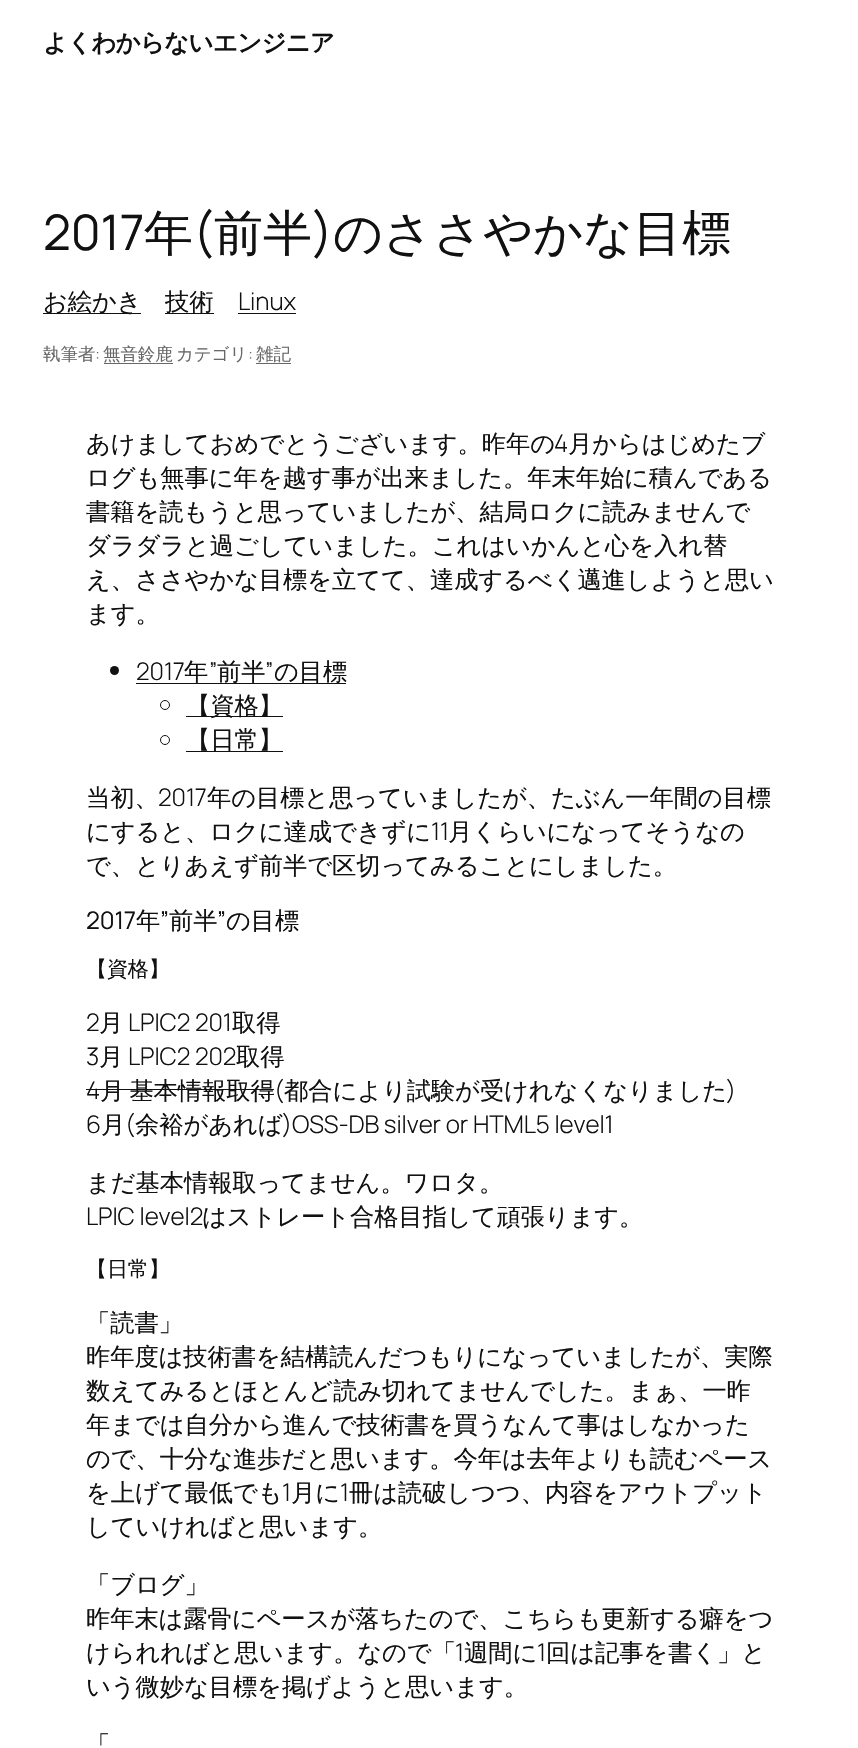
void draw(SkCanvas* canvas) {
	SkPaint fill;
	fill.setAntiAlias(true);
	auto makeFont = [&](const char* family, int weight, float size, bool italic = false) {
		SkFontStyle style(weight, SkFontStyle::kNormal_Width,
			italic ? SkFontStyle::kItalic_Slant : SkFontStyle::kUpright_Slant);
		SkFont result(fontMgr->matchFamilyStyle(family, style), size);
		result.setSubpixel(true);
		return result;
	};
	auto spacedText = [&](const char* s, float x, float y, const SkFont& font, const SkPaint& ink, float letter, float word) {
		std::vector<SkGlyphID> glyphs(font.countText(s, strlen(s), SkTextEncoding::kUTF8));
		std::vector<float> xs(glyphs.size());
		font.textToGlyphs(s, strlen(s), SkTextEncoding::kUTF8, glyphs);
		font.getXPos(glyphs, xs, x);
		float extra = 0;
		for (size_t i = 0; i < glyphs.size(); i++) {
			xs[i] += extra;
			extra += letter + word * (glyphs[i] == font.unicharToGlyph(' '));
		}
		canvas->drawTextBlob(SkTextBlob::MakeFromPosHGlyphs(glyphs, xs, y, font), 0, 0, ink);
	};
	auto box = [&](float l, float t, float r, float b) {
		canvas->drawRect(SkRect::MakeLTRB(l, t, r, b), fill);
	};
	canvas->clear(0xFFFFFFFF);
	fill.setColor(0xFF111111);
	box(43, 313, 141, 314);
	box(165, 313, 214, 314);
	box(238, 313, 296, 314);
	fill.setColor(0xFF686868);
	box(104, 363, 173, 364);
	box(256, 363, 291, 364);
	fill.setColor(0xFF111111);
	box(136, 683, 346, 684);
	canvas->drawCircle(114.5f, 670.5f, 4.5f, fill);
	fill.setStyle(SkPaint::kStroke_Style);
	fill.setStrokeWidth(1);
	canvas->drawCircle(165, 705, 4.5f, fill);
	fill.setStyle(SkPaint::kFill_Style);
	box(186, 716, 283, 717);
	fill.setStyle(SkPaint::kStroke_Style);
	canvas->drawCircle(165, 740, 4.5f, fill);
	fill.setStyle(SkPaint::kFill_Style);
	box(186, 751, 283, 752);
	box(86, 1089, 274, 1090);
	auto font1 = makeFont("WenQuanYi Zen Hei", 700, 24.3f);
	spacedText("よくわからないエンジニア", 43, 51, font1, fill, -0.6f, 0);
	auto font2 = makeFont("Manrope", 400, 49);
	spacedText("2017", 43, 250, font2, fill, -0.1f, 0);
	auto font3 = makeFont("WenQuanYi Zen Hei", 500, 49);
	spacedText("年", 144, 250, font3, fill, -0.1f, 0);
	spacedText("(", 193, 250, font2, fill, -0.1f, 0);
	spacedText("前半", 214, 250, font3, fill, -0.1f, 0);
	spacedText(")", 312, 250, font2, fill, -0.1f, 0);
	spacedText("のささやかな目標", 333, 250, font3, fill, -0.1f, 0);
	auto font4 = makeFont("WenQuanYi Zen Hei", 500, 24.3f);
	spacedText("お絵かき", 43, 310, font4, fill, -0.1f, 0);
	spacedText("技術", 165, 310, font4, fill, -0.1f, 0);
	auto font5 = makeFont("Manrope", 300, 24.3f);
	spacedText("Linux", 238, 310, font5, fill, -0.1f, 0);
	auto font6 = makeFont("WenQuanYi Zen Hei", 500, 17.5f);
	fill.setColor(0xFF686868);
	spacedText("執筆者", 43, 360, font6, fill, -0.1f, 0);
	auto font7 = makeFont("Manrope", 300, 17.5f);
	spacedText(":", 95, 360, font7, fill, -0.1f, 0);
	spacedText("無音鈴鹿", 103, 360, font6, fill, -0.1f, 0);
	spacedText("カテゴリ", 176, 360, font6, fill, -0.1f, 0);
	spacedText(":", 248, 360, font7, fill, -0.1f, 0);
	spacedText("雑記", 256, 360, font6, fill, -0.1f, 0);
	fill.setColor(0xFF111111);
	spacedText("あけましておめでとうございます。昨年の", 86, 452, font4, fill, -0.1f, 0);
	spacedText("4", 554, 452, font5, fill, -0.1f, 0);
	spacedText("月からはじめたブ", 568, 452, font4, fill, -0.1f, 0);
	spacedText("ログも無事に年を越す事が出来ました。年末年始に積んである", 86, 486, font4, fill, -0.1f, 0);
	spacedText("書籍を読もうと思っていましたが、結局ロクに読みませんで", 86, 520, font4, fill, -0.1f, 0);
	spacedText("ダラダラと過ごしていました。これはいかんと心を入れ替", 86, 554, font4, fill, -0.1f, 0);
	spacedText("え、ささやかな目標を立てて、達成するべく邁進しようと思い", 86, 588, font4, fill, -0.1f, 0);
	spacedText("ます。", 86, 622, font4, fill, -0.1f, 0);
	spacedText("2017", 136, 680, font5, fill, -0.1f, 0);
	spacedText("年", 184, 680, font4, fill, -0.1f, 0);
	spacedText("”", 209, 680, font5, fill, -0.1f, 0);
	spacedText("前半", 217, 680, font4, fill, -0.1f, 0);
	spacedText("”", 265, 680, font5, fill, -0.1f, 0);
	spacedText("の目標", 274, 680, font4, fill, -0.1f, 0);
	spacedText("【資格】", 186, 714, font4, fill, -0.1f, 0);
	spacedText("【日常】", 186, 748, font4, fill, -0.1f, 0);
	spacedText("当初、", 86, 806, font4, fill, -0.1f, 0);
	spacedText("2017", 158, 806, font5, fill, -0.1f, 0);
	spacedText("年の目標と思っていましたが、たぶん一年間の目標", 207, 806, font4, fill, -0.1f, 0);
	spacedText("にすると、ロクに達成できずに", 86, 840, font4, fill, -0.1f, 0);
	spacedText("11", 431, 840, font5, fill, -0.1f, 0);
	spacedText("月くらいになってそうなの", 448, 840, font4, fill, -0.1f, 0);
	spacedText("で、とりあえず前半で区切ってみることにしました。", 86, 874, font4, fill, -0.1f, 0);
	auto font8 = makeFont("Manrope", 400, 24.3f);
	spacedText("2017", 86, 929, font8, fill, -0.1f, 0);
	spacedText("年", 136, 929, font4, fill, -0.1f, 0);
	spacedText("”", 160, 929, font8, fill, -0.1f, 0);
	spacedText("前半", 169, 929, font4, fill, -0.1f, 0);
	spacedText("”", 217, 929, font8, fill, -0.1f, 0);
	spacedText("の目標", 226, 929, font4, fill, -0.1f, 0);
	auto font9 = makeFont("WenQuanYi Zen Hei", 500, 21);
	spacedText("【資格】", 86, 976, font9, fill, -0.1f, 0);
	spacedText("2", 86, 1031, font5, fill, -0.1f, 0);
	spacedText("月", 99, 1031, font4, fill, -0.1f, 0);
	spacedText("LPIC2 201", 128, 1031, font5, fill, -0.1f, 0);
	spacedText("取得", 232, 1031, font4, fill, -0.1f, 0);
	spacedText("3", 86, 1065, font5, fill, -0.1f, 0);
	spacedText("月", 99, 1065, font4, fill, -0.1f, 0);
	spacedText("LPIC2 202", 128, 1065, font5, fill, -0.1f, 0);
	spacedText("取得", 236, 1065, font4, fill, -0.1f, 0);
	spacedText("4", 86, 1099, font5, fill, -0.1f, 0);
	spacedText("月 基本情報取得", 100, 1099, font4, fill, -0.1f, -2);
	spacedText("(", 274, 1099, font5, fill, -0.1f, 0);
	spacedText("都合により試験が受けれなくなりました", 284, 1099, font4, fill, -0.1f, 0);
	spacedText(")", 726, 1099, font5, fill, -0.1f, 0);
	spacedText("6", 86, 1133, font5, fill, -0.1f, 0);
	spacedText("月", 101, 1133, font4, fill, -0.1f, 0);
	spacedText("(", 125, 1133, font5, fill, -0.1f, 0);
	spacedText("余裕があれば", 135, 1133, font4, fill, -0.1f, 0);
	spacedText(")OSS-DB silver or HTML5 level1", 282, 1133, font5, fill, -0.1f, 0);
	spacedText("まだ基本情報取ってません。ワロタ。", 86, 1191, font4, fill, -0.1f, 0);
	spacedText("LPIC level2", 86, 1225, font5, fill, -0.1f, 0);
	spacedText("はストレート合格目指して頑張ります。", 202, 1225, font4, fill, -0.1f, 0);
	spacedText("【日常】", 86, 1276, font9, fill, -0.1f, 0);
	spacedText("「読書」", 86, 1331, font4, fill, -0.1f, 0);
	spacedText("昨年度は技術書を結構読んだつもりになっていましたが、実際", 86, 1365, font4, fill, -0.1f, 0);
	spacedText("数えてみるとほとんど読み切れてませんでした。まぁ、一昨", 86, 1399, font4, fill, -0.1f, 0);
	spacedText("年までは自分から進んで技術書を買うなんて事はしなかった", 86, 1433, font4, fill, -0.1f, 0);
	spacedText("ので、十分な進歩だと思います。今年は去年よりも読むペース", 86, 1467, font4, fill, -0.1f, 0);
	spacedText("を上げて最低でも", 86, 1501, font4, fill, -0.1f, 0);
	spacedText("1", 282, 1501, font5, fill, -0.1f, 0);
	spacedText("月に", 291, 1501, font4, fill, -0.1f, 0);
	spacedText("1", 340, 1501, font5, fill, -0.1f, 0);
	spacedText("冊は読破しつつ、内容をアウトプット", 349, 1501, font4, fill, -0.1f, 0);
	spacedText("していければと思います。", 86, 1535, font4, fill, -0.1f, 0);
	spacedText("「ブログ」", 86, 1593, font4, fill, -0.1f, 0);
	spacedText("昨年末は露骨にペースが落ちたので、こちらも更新する癖をつ", 86, 1627, font4, fill, -0.1f, 0);
	spacedText("けられればと思います。なので「", 86, 1661, font4, fill, -0.1f, 0);
	spacedText("1", 455, 1661, font5, fill, -0.1f, 0);
	spacedText("週間に", 464, 1661, font4, fill, -0.1f, 0);
	spacedText("1", 537, 1661, font5, fill, -0.1f, 0);
	spacedText("回は記事を書く」と", 546, 1661, font4, fill, -0.1f, 0);
	spacedText("いう微妙な目標を掲げようと思います。", 86, 1695, font4, fill, -0.1f, 0);
	spacedText("「", 86, 1753, font4, fill, -0.1f, 0);
}
